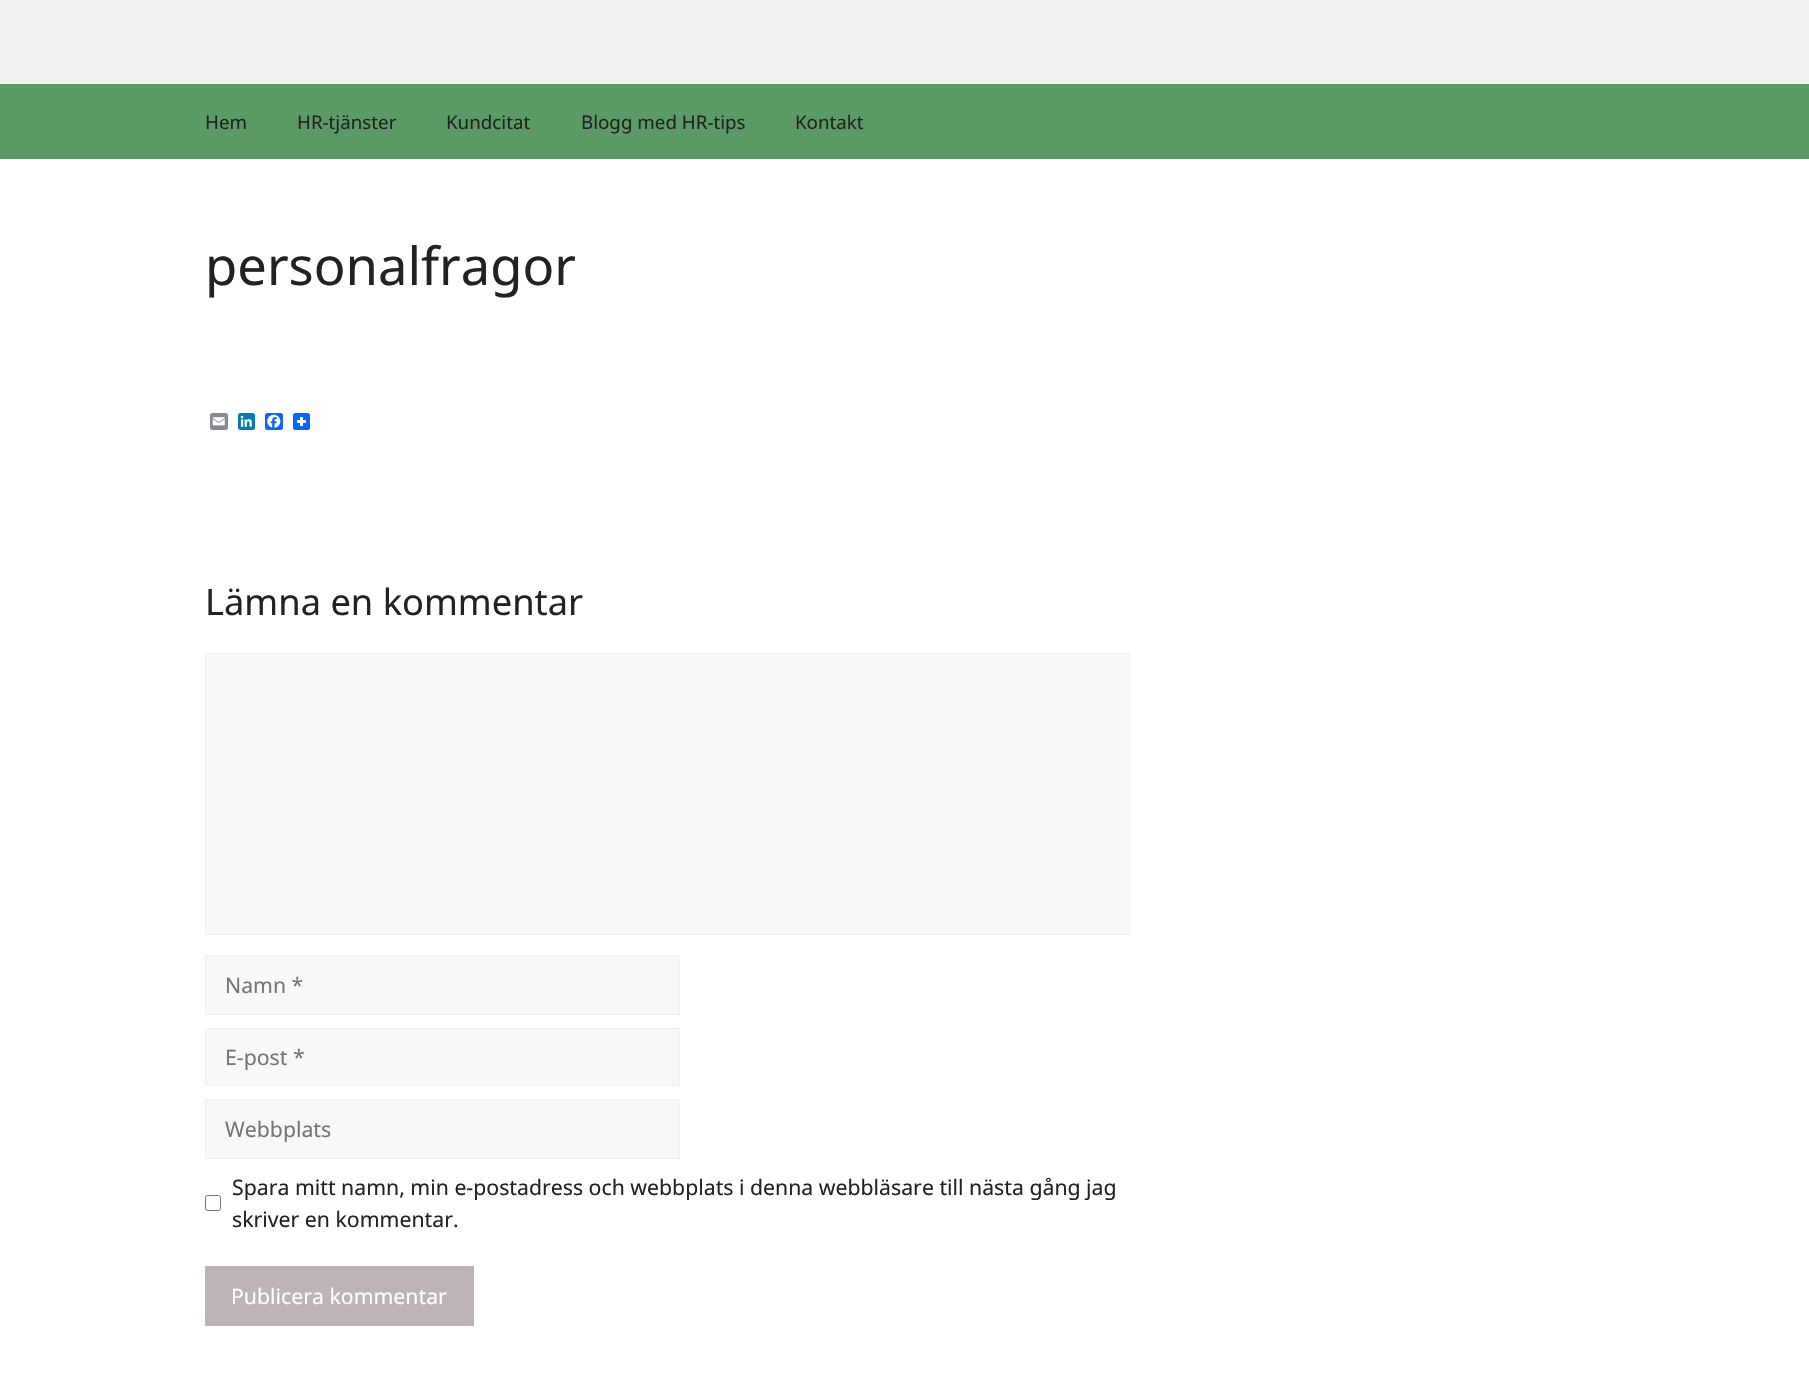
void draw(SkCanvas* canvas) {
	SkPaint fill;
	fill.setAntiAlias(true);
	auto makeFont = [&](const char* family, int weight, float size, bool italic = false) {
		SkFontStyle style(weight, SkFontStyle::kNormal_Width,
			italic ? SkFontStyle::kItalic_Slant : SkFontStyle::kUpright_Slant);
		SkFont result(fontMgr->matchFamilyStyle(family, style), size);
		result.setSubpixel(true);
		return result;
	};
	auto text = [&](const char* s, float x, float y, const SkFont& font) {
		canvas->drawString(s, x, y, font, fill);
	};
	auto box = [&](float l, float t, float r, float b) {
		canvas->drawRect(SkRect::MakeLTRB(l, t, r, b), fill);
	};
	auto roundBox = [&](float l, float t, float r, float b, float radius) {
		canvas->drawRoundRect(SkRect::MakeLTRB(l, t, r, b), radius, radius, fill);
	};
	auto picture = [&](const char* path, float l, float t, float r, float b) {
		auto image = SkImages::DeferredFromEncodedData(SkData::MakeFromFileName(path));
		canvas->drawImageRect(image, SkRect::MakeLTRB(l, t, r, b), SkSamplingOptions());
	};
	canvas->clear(0xFFFFFFFF);
	fill.setColor(0xFFF0F0F0);
	box(0, 0, 1809, 84);
	fill.setColor(0xFF5B9A66);
	box(0, 84, 1809, 159);
	fill.setColor(0xFF888990);
	roundBox(210, 413, 228, 430, 2.5f);
	picture("image0.png", 212, 417, 225, 426);
	fill.setColor(0xFF007BB5);
	roundBox(238, 413, 255, 430, 2.5f);
	picture("image1.png", 240, 415, 252, 427);
	fill.setColor(0xFF0866FF);
	roundBox(265, 413, 283, 430, 2.5f);
	picture("image2.png", 267, 414, 281, 428);
	fill.setColor(0xFF0166FF);
	roundBox(293, 413, 310, 430, 2.5f);
	fill.setColor(0xFFFFFFFF);
	box(300, 417, 303, 426);
	box(297, 420, 306, 423);
	fill.setColor(0xFFF7F8F9);
	canvas->drawRect(SkRect::MakeLTRB(205.5f, 653.5f, 1129.5f, 934.5f), fill);
	fill.setStyle(SkPaint::kStroke_Style);
	fill.setStrokeWidth(1);
	fill.setColor(0xFFF0F0F0);
	canvas->drawRect(SkRect::MakeLTRB(205.5f, 653.5f, 1129.5f, 934.5f), fill);
	fill.setStyle(SkPaint::kFill_Style);
	fill.setColor(0xFFF7F8F9);
	canvas->drawRect(SkRect::MakeLTRB(205.5f, 955.5f, 679.5f, 1014.5f), fill);
	fill.setStyle(SkPaint::kStroke_Style);
	fill.setColor(0xFFF0F0F0);
	canvas->drawRect(SkRect::MakeLTRB(205.5f, 955.5f, 679.5f, 1014.5f), fill);
	fill.setStyle(SkPaint::kFill_Style);
	fill.setColor(0xFFF7F8F9);
	canvas->drawRect(SkRect::MakeLTRB(205.5f, 1028.5f, 679.5f, 1085.5f), fill);
	fill.setStyle(SkPaint::kStroke_Style);
	fill.setColor(0xFFF0F0F0);
	canvas->drawRect(SkRect::MakeLTRB(205.5f, 1028.5f, 679.5f, 1085.5f), fill);
	fill.setStyle(SkPaint::kFill_Style);
	fill.setColor(0xFFF7F8F9);
	canvas->drawRect(SkRect::MakeLTRB(205.5f, 1099.5f, 679.5f, 1158.5f), fill);
	fill.setStyle(SkPaint::kStroke_Style);
	fill.setColor(0xFFF0F0F0);
	canvas->drawRect(SkRect::MakeLTRB(205.5f, 1099.5f, 679.5f, 1158.5f), fill);
	fill.setColor(0xFF767676);
	canvas->drawRoundRect(SkRect::MakeLTRB(205.5f, 1195.5f, 220.5f, 1210.5f), 2, 2, fill);
	fill.setStyle(SkPaint::kFill_Style);
	fill.setColor(0xFFBFB4B5);
	box(205, 1266, 474, 1326);
	auto font1 = makeFont("Noto Sans", 400, 18.75f);
	fill.setColor(0xFF222222);
	text("Hem", 205, 129, font1);
	text("HR-tjänster", 297, 129, font1);
	text("Kundcitat", 446, 129, font1);
	text("Blogg med HR-tips", 581, 129, font1);
	text("Kontakt", 795, 129, font1);
	auto font2 = makeFont("Noto Sans", 400, 52.5f);
	text("personalfragor", 205, 285, font2);
	auto font3 = makeFont("Noto Sans", 400, 36.25f);
	text("Lämna en kommentar", 205, 615, font3);
	auto font4 = makeFont("Noto Sans", 400, 21.25f);
	fill.setColor(0xFF757575);
	text("Namn *", 225, 993, font4);
	text("E-post *", 225, 1065, font4);
	text("Webbplats", 225, 1137, font4);
	fill.setColor(0xFF222222);
	text("Spara mitt namn, min e-postadress och webbplats i denna webbläsare till nästa gång jag", 232, 1195, font4);
	text("skriver en kommentar.", 232, 1227, font4);
	fill.setColor(0xFFFFFFFF);
	text("Publicera kommentar", 231, 1304, font4);
}
